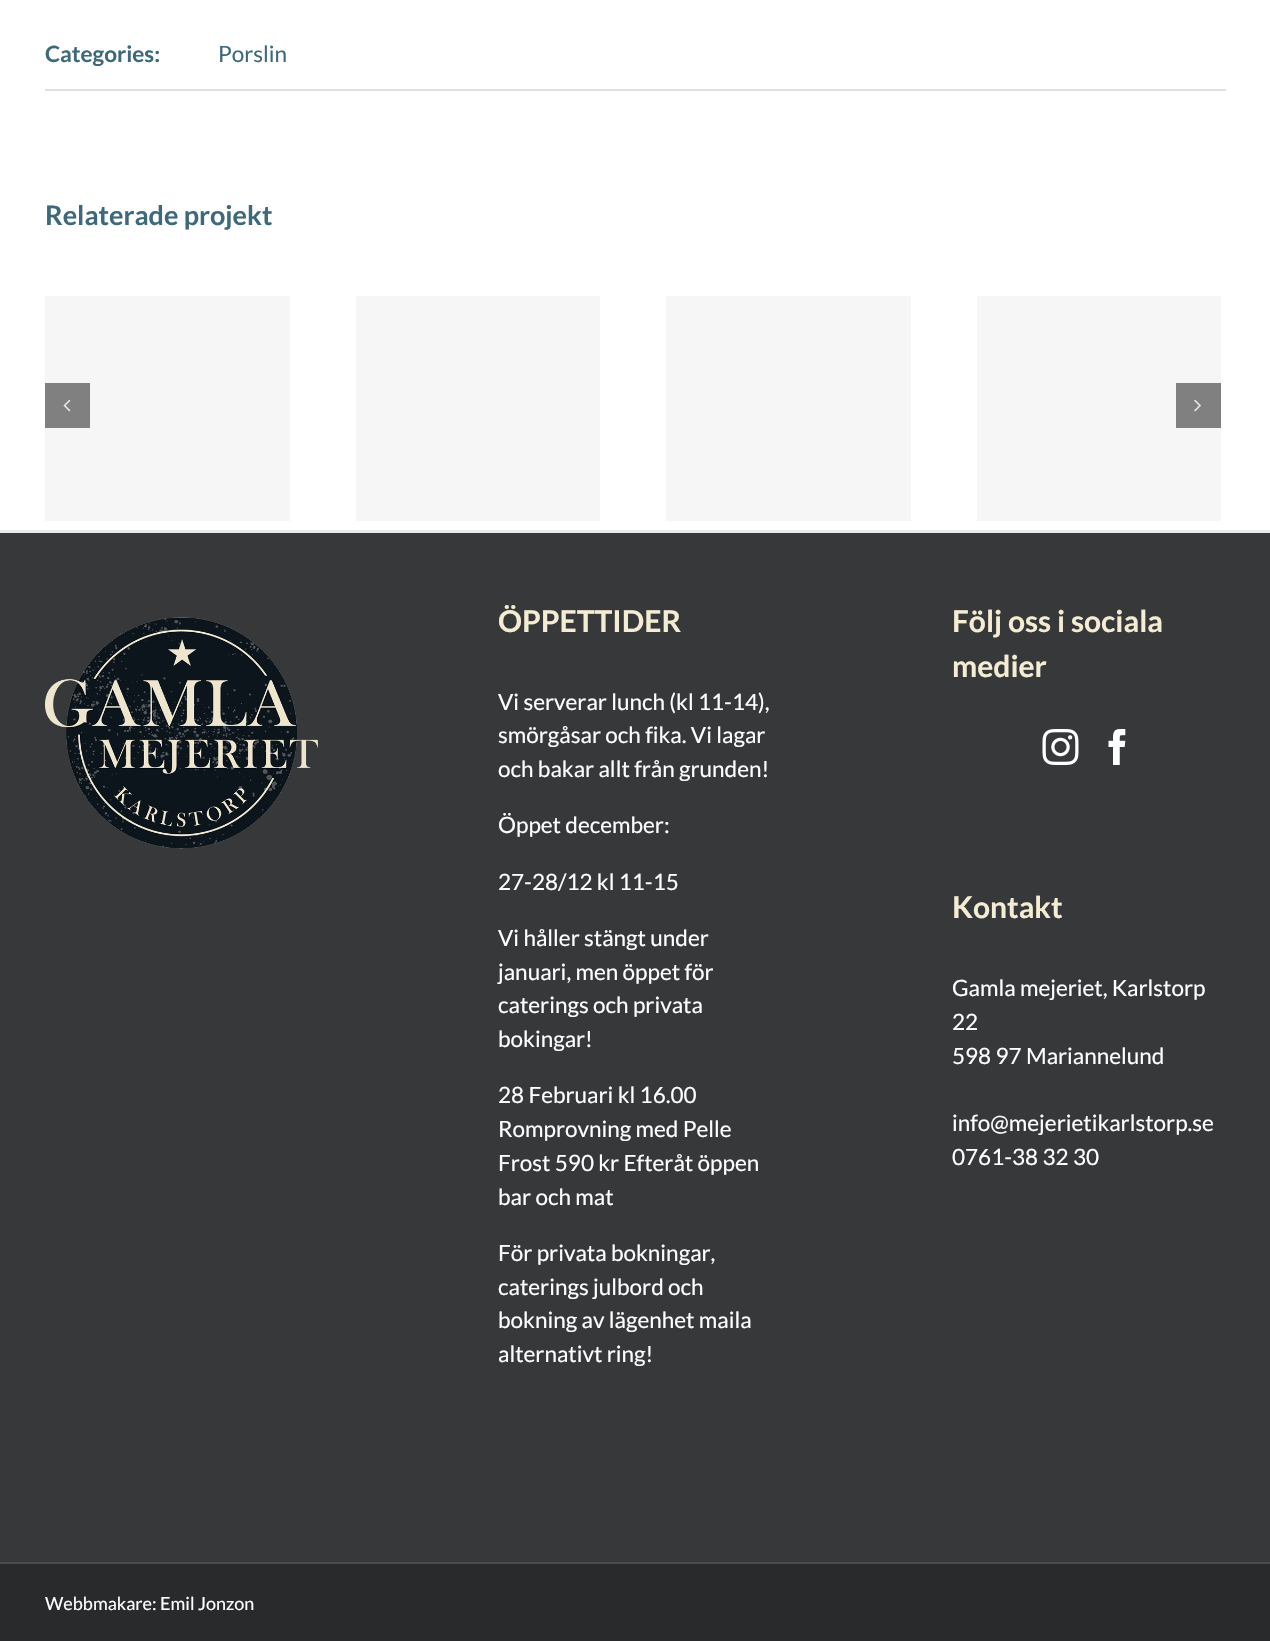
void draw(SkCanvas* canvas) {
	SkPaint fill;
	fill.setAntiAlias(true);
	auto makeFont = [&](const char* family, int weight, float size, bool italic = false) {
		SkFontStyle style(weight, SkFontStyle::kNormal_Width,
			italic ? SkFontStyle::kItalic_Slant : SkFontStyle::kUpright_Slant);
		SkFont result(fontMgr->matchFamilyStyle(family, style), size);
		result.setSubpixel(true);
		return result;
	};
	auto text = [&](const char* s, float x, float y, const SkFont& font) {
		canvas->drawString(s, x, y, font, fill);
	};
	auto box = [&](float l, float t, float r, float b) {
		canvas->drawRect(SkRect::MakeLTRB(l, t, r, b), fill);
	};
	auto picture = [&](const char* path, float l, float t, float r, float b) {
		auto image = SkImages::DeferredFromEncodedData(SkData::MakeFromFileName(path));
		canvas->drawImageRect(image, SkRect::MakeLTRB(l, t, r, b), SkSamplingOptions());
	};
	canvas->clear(0xFFFFFFFF);
	fill.setColor(0xFFE0DEDE);
	box(45, 89, 1226, 91);
	fill.setColor(0xFFF6F6F6);
	box(45, 296, 290, 521);
	box(356, 296, 600, 521);
	box(666, 296, 911, 521);
	box(977, 296, 1221, 521);
	fill.setColor(0xFF808080);
	box(45, 383, 90, 428);
	picture("image0.png", 63, 399, 71, 412);
	box(1176, 383, 1221, 428);
	picture("image1.png", 1194, 399, 1201, 412);
	fill.setColor(0xFF363839);
	box(0, 533, 1270, 1562);
	fill.setColor(0xFFE9EAEE);
	box(0, 530, 1270, 533);
	picture("image2.png", 45, 617, 318, 849);
	picture("image3.png", 1042, 729, 1079, 765);
	picture("image4.png", 1108, 729, 1126, 765);
	fill.setColor(0xFF282A2B);
	box(0, 1564, 1270, 1641);
	fill.setColor(0xFF4B4C4D);
	box(0, 1562, 1270, 1564);
	auto font1 = makeFont("Lato", 700, 22.5f);
	fill.setColor(0xFF3D697A);
	text("Categories:", 45, 62, font1);
	auto font2 = makeFont("Lato", 400, 22.5f);
	text("Porslin", 218, 62, font2);
	auto font3 = makeFont("Lato", 700, 27);
	text("Relaterade projekt", 45, 225, font3);
	auto font4 = makeFont("Lato", 700, 30);
	fill.setColor(0xFFF4ECD3);
	text("ÖPPETTIDER", 498, 632, font4);
	fill.setColor(0xFFFFFFFF);
	text("Vi serverar lunch (kl 11-14),", 498, 710, font2);
	text("smörgåsar och fika. Vi lagar", 498, 743, font2);
	text("och bakar allt från grunden!", 498, 777, font2);
	text("Öppet december:", 498, 833, font2);
	text("27-28/12 kl 11-15", 498, 890, font2);
	text("Vi håller stängt under", 498, 946, font2);
	text("januari, men öppet för", 498, 980, font2);
	text("caterings och privata", 498, 1013, font2);
	text("bokingar!", 498, 1047, font2);
	text("28 Februari kl 16.00", 498, 1103, font2);
	text("Romprovning med Pelle", 498, 1137, font2);
	text("Frost 590 kr Efteråt öppen", 498, 1171, font2);
	text("bar och mat", 498, 1205, font2);
	text("För privata bokningar,", 498, 1261, font2);
	text("caterings julbord och", 498, 1295, font2);
	text("bokning av lägenhet maila", 498, 1328, font2);
	text("alternativt ring!", 498, 1362, font2);
	fill.setColor(0xFFF4ECD3);
	text("Följ oss i sociala", 952, 632, font4);
	text("medier", 952, 677, font4);
	text("Kontakt", 952, 918, font4);
	fill.setColor(0xFFFFFFFF);
	text("Gamla mejeriet, Karlstorp", 952, 996, font2);
	text("22", 952, 1030, font2);
	text("598 97 Mariannelund", 952, 1064, font2);
	text("info@mejerietikarlstorp.se", 952, 1131, font2);
	text("0761-38 32 30", 952, 1165, font2);
	auto font5 = makeFont("Lato", 400, 18);
	text("Webbmakare: Emil Jonzon", 45, 1610, font5);
}
